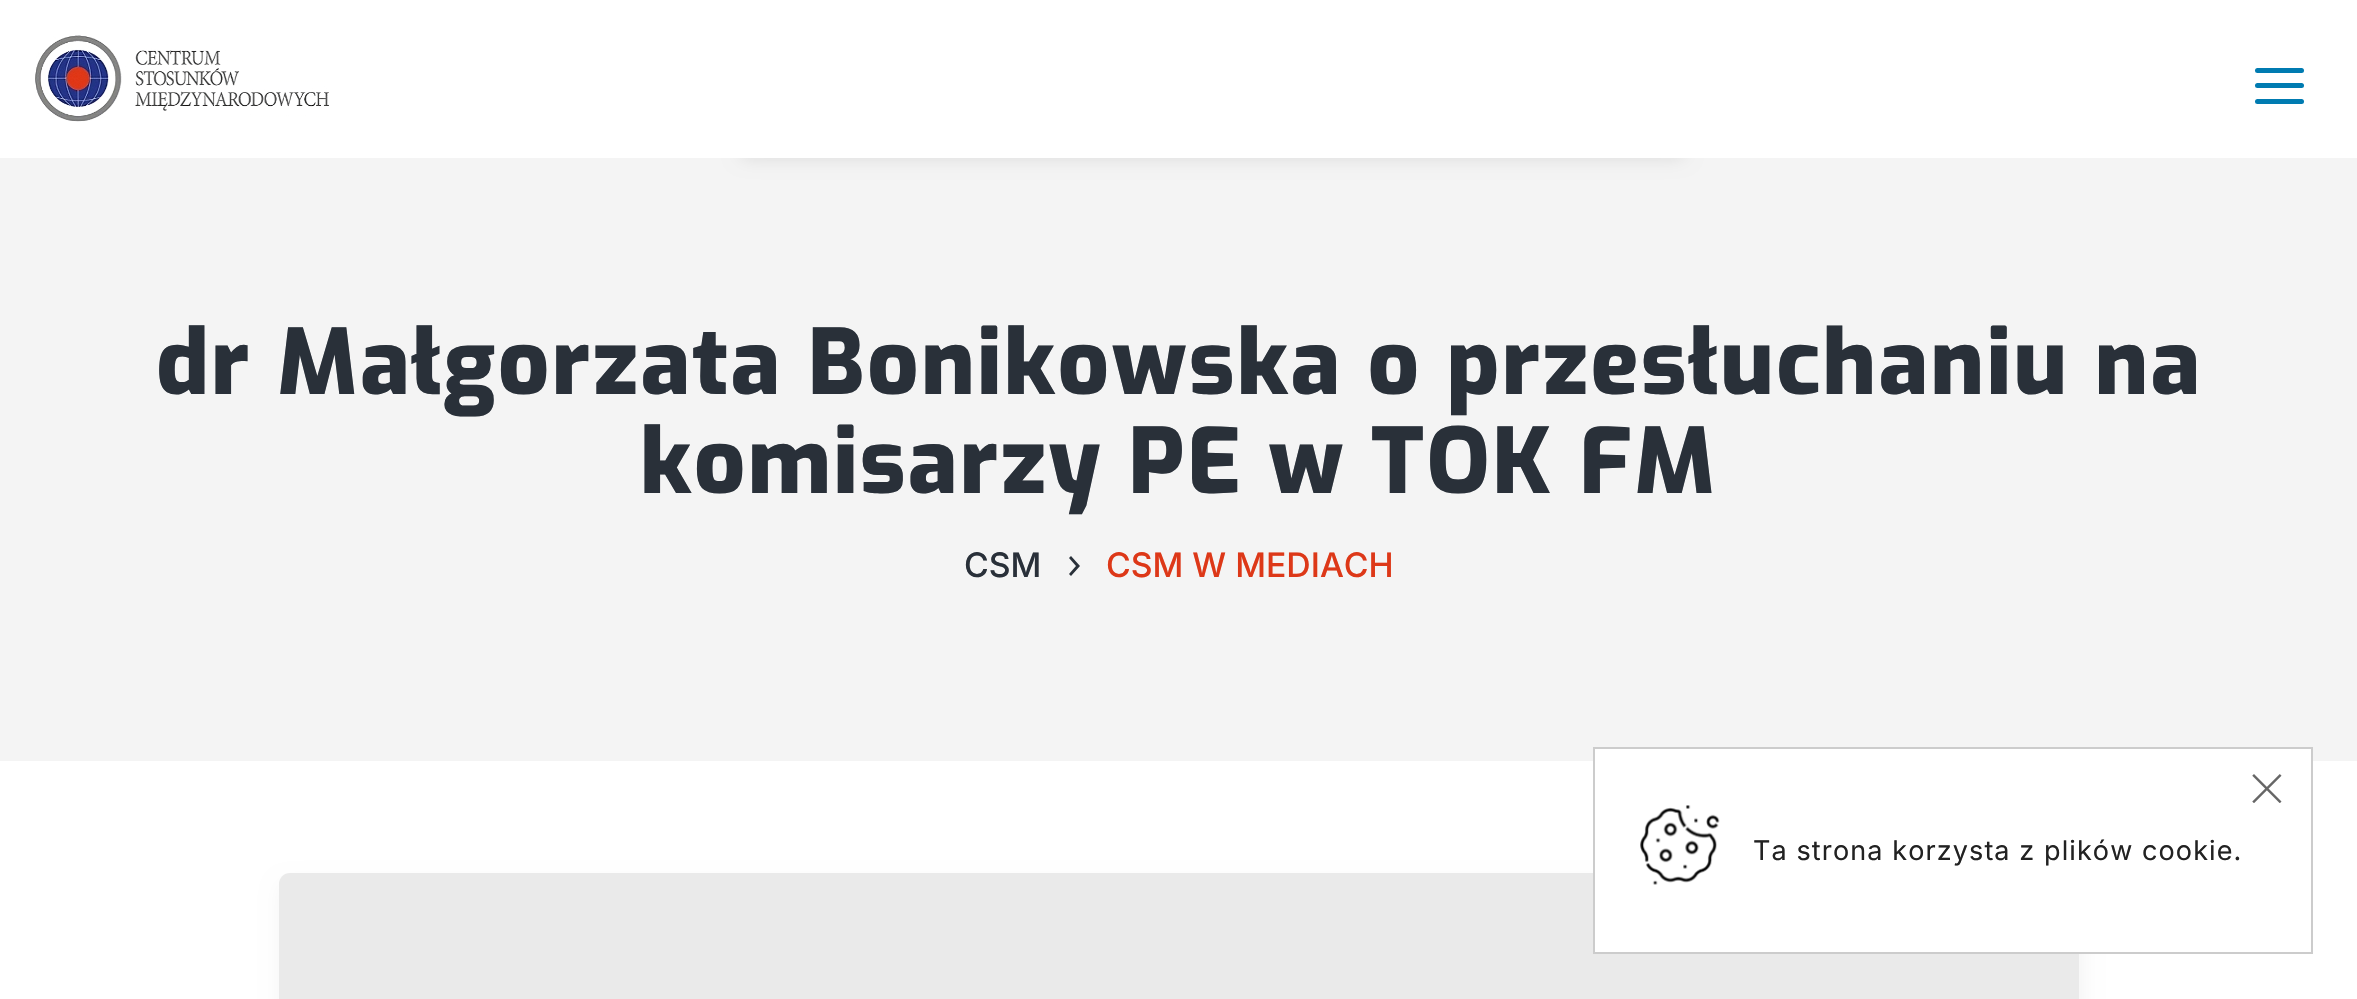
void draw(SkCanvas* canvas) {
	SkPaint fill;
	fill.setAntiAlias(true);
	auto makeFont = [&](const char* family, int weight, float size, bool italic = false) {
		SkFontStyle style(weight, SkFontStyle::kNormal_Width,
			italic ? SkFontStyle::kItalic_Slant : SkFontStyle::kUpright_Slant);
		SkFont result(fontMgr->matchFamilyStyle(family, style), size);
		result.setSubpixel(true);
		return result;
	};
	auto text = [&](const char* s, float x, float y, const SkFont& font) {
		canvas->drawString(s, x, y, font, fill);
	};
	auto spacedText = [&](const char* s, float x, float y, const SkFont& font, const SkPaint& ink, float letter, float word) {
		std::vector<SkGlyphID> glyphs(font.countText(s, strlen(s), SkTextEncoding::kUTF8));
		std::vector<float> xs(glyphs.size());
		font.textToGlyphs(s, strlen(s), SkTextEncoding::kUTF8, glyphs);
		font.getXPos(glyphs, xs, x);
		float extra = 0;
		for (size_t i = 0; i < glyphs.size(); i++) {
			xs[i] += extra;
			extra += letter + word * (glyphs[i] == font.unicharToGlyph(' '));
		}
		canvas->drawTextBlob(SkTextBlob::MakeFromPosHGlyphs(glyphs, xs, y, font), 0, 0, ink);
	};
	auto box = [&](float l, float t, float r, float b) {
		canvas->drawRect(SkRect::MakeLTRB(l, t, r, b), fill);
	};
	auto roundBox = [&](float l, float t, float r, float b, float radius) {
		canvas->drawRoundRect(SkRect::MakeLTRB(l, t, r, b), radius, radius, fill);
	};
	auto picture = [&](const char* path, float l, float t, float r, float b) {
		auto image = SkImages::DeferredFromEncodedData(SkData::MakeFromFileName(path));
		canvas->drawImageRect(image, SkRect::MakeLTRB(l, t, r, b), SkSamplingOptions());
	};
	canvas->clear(0xFFFFFFFF);
	picture("image0.png", 35, 35, 329, 122);
	fill.setColor(0xFF007BB1);
	roundBox(2255, 68, 2304, 73, 2.5f);
	roundBox(2255, 83, 2304, 88, 2.5f);
	roundBox(2255, 99, 2304, 104, 2.5f);
	fill.setColor(0xFFF4F4F4);
	box(0, 158, 2357, 761);
	canvas->save();
	canvas->clipRect(SkRect::MakeLTRB(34, 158, 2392, 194));
	fill.setColor(0x1A000000);
	fill.setMaskFilter(SkMaskFilter::MakeBlur(kNormal_SkBlurStyle, 9));
	canvas->drawRoundRect(SkRect::MakeLTRB(740, 140, 1685, 158), 9, 9, fill);
	fill.setMaskFilter(nullptr);
	canvas->restore();
	fill.setColor(0xFF293039);
	canvas->drawPath(SkPathBuilder().moveTo(1080, 566).lineTo(1071, 576).lineTo(1069, 574).lineTo(1076, 566).lineTo(1069, 558).lineTo(1071, 556).close().detach(), fill);
	fill.setColor(0x0A000000);
	fill.setMaskFilter(SkMaskFilter::MakeBlur(kNormal_SkBlurStyle, 9));
	canvas->drawRoundRect(SkRect::MakeLTRB(279, 882, 2084, 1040), 14, 14, fill);
	fill.setMaskFilter(nullptr);
	fill.setColor(0xFFEAEAEA);
	roundBox(279, 873, 2079, 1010, 11);
	fill.setColor(0xFFFFFFFF);
	canvas->drawRect(SkRect::MakeLTRB(1594, 748, 2312, 953), fill);
	fill.setStyle(SkPaint::kStroke_Style);
	fill.setStrokeWidth(2);
	fill.setColor(0xFFCCCCCC);
	canvas->drawRect(SkRect::MakeLTRB(1594, 748, 2312, 953), fill);
	picture("image1.png", 2252, 774, 2282, 803);
	picture("image2.png", 1640, 805, 1720, 885);
	auto font1 = makeFont("Exo", 800, 90);
	fill.setStyle(SkPaint::kFill_Style);
	fill.setColor(0xFF293039);
	spacedText("dr Małgorzata Bonikowska o przesłuchaniu na", 156, 394, font1, fill, 2.25f, 0);
	spacedText("komisarzy PE w TOK FM", 640, 493, font1, fill, 2.25f, 0);
	auto font2 = makeFont("Inter", 500, 33.75f);
	text("CSM", 964, 577, font2);
	fill.setColor(0xFFDD3818);
	text("CSM W MEDIACH", 1106, 577, font2);
	auto font3 = makeFont("Inter", 400, 27);
	fill.setColor(0xFF222222);
	spacedText("Ta strona korzysta z plików cookie.", 1753, 860, font3, fill, 1.1f, 0);
}
